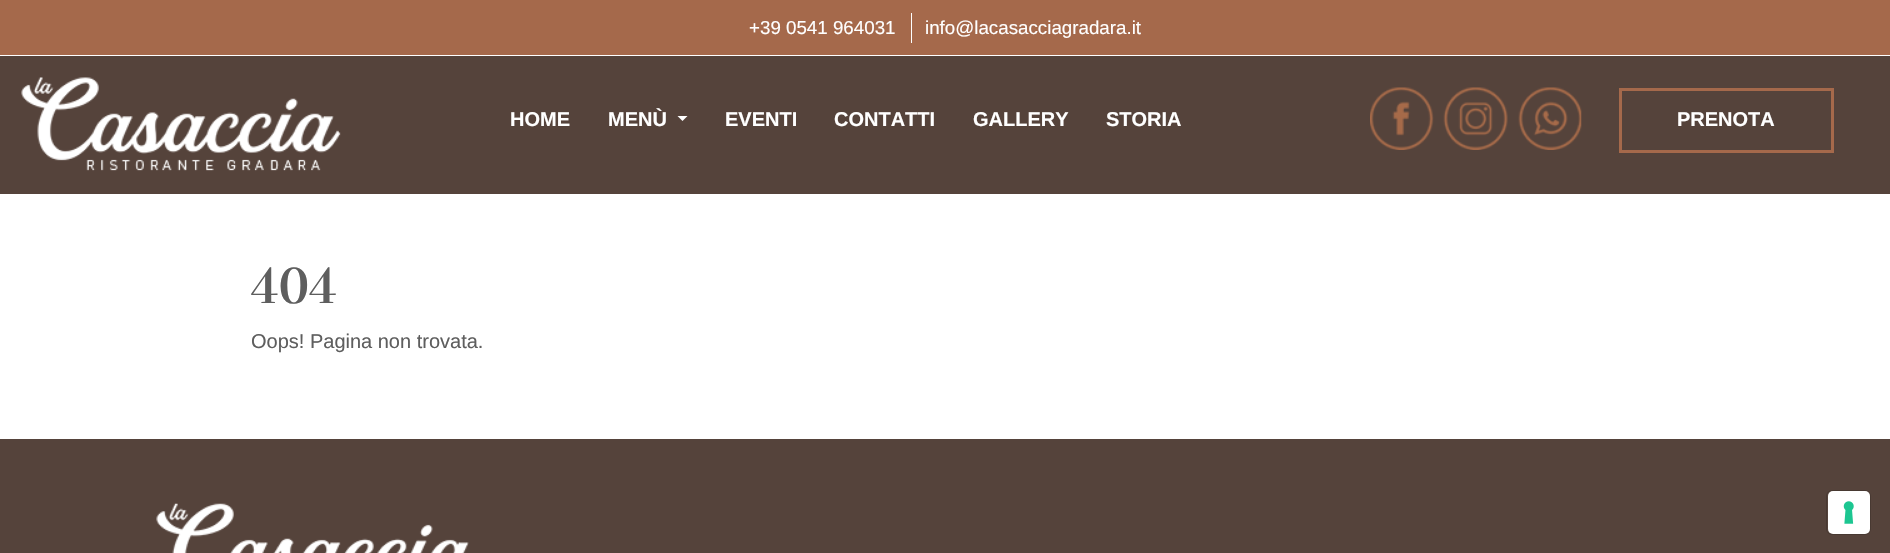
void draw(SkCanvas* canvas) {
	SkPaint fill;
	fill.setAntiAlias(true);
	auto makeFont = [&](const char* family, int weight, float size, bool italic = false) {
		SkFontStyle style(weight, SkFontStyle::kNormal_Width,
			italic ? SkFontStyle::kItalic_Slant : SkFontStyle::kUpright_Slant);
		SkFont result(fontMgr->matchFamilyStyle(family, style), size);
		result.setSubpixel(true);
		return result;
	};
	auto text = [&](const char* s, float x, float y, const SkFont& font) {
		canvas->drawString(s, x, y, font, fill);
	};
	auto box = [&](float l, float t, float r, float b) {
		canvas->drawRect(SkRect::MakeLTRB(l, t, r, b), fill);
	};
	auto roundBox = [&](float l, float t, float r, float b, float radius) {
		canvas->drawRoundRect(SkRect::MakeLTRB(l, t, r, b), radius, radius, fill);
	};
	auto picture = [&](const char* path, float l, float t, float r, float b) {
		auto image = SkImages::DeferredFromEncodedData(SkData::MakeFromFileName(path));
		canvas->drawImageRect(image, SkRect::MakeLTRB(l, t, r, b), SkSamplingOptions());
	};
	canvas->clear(0xFFFFFFFF);
	fill.setColor(0xFFA5694B);
	box(0, 0, 1890, 55);
	fill.setColor(0xFFFFFFFF);
	box(911, 13, 912, 43);
	fill.setColor(0xFF55433B);
	box(0, 56, 1890, 194);
	picture("image0.png", 21, 77, 341, 171);
	fill.setColor(0xFFFFFFFF);
	canvas->drawPath(SkPathBuilder().moveTo(677.5f, 116).lineTo(687.5f, 116).lineTo(682.5f, 121).close().detach(), fill);
	picture("image1.png", 1370, 87, 1434, 150);
	picture("image2.png", 1443, 87, 1508, 150);
	picture("image3.png", 1518, 87, 1582, 150);
	fill.setStyle(SkPaint::kStroke_Style);
	fill.setStrokeWidth(3);
	fill.setColor(0xFFA5694B);
	canvas->drawRect(SkRect::MakeLTRB(1620.5f, 89.5f, 1832.5f, 151.5f), fill);
	fill.setStyle(SkPaint::kFill_Style);
	fill.setColor(0xFF55433B);
	box(0, 439, 1890, 553);
	picture("image4.png", 156, 503, 469, 553);
	fill.setStyle(SkPaint::kStroke_Style);
	fill.setStrokeWidth(1);
	fill.setColor(0xFF483932);
	canvas->drawRoundRect(SkRect::MakeLTRB(1826.5f, 490.5f, 1870.5f, 534.5f), 5.5f, 5.5f, fill);
	fill.setStyle(SkPaint::kFill_Style);
	fill.setColor(0xFFFFFFFF);
	roundBox(1828, 491, 1870, 534, 5);
	picture("image5.png", 1843, 501, 1854, 524);
	auto font1 = makeFont("Arimo", 400, 18.75f);
	text("+39 0541 964031", 749, 34, font1);
	text("info@lacasacciagradara.it", 925, 34, font1);
	auto font2 = makeFont("Arimo", 700, 20);
	text("HOME", 510, 126, font2);
	text("MENÙ", 608, 126, font2);
	text("EVENTI", 725, 126, font2);
	text("CONTATTI", 834, 126, font2);
	text("GALLERY", 973, 126, font2);
	text("STORIA", 1106, 126, font2);
	text("PRENOTA", 1677, 126, font2);
	auto font3 = makeFont("Vidaloka", 400, 50);
	fill.setColor(0xFF5E5E5E);
	text("404", 251, 303, font3);
	auto font4 = makeFont("Arimo", 400, 20);
	text("Oops! Pagina non trovata.", 251, 348, font4);
}
